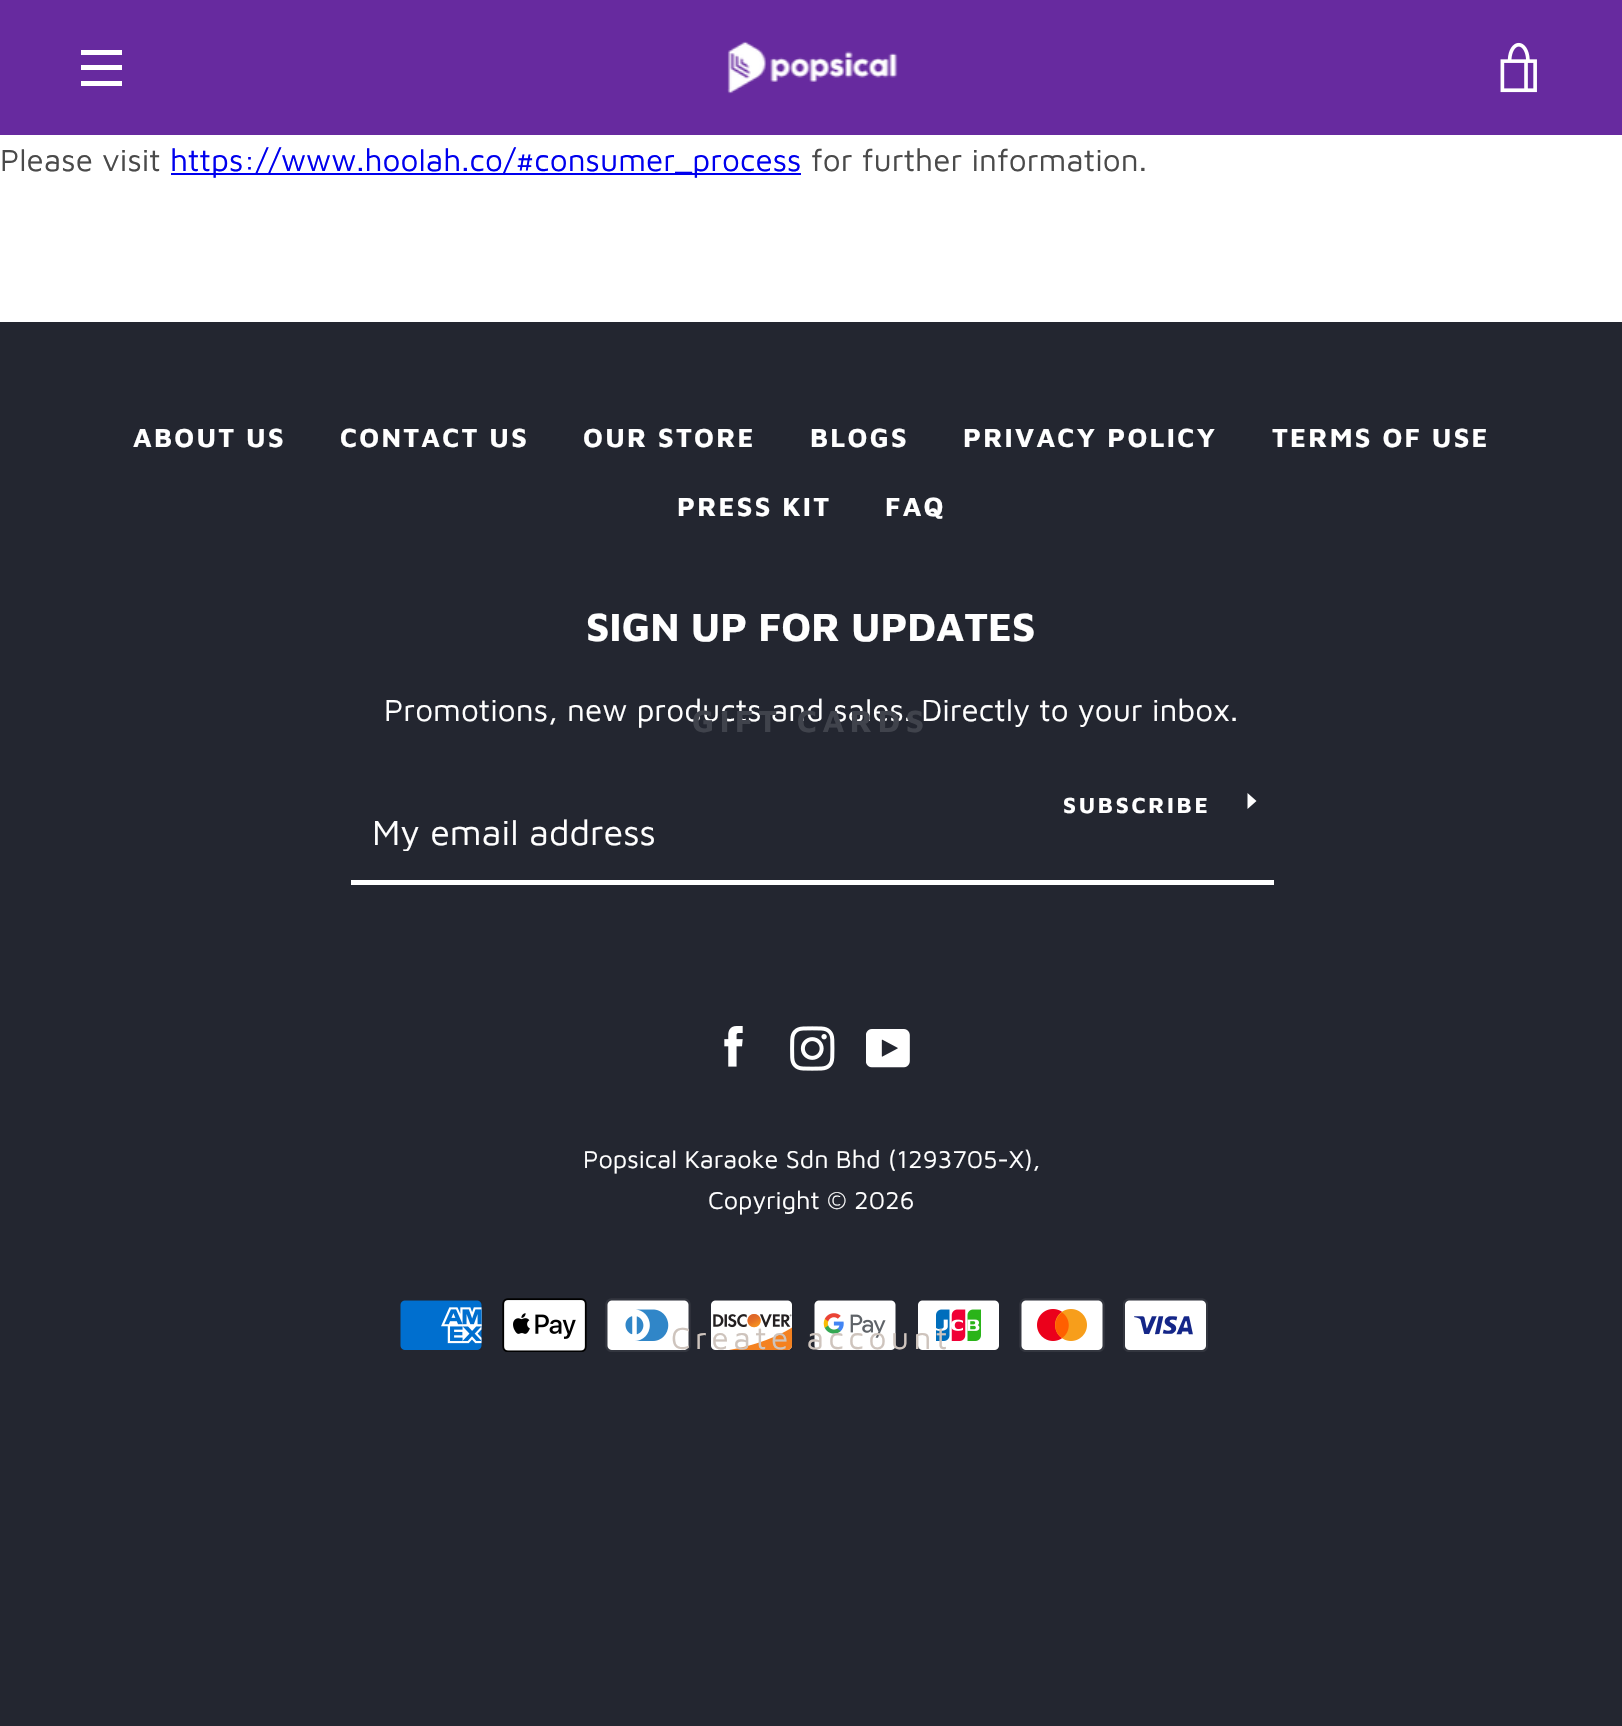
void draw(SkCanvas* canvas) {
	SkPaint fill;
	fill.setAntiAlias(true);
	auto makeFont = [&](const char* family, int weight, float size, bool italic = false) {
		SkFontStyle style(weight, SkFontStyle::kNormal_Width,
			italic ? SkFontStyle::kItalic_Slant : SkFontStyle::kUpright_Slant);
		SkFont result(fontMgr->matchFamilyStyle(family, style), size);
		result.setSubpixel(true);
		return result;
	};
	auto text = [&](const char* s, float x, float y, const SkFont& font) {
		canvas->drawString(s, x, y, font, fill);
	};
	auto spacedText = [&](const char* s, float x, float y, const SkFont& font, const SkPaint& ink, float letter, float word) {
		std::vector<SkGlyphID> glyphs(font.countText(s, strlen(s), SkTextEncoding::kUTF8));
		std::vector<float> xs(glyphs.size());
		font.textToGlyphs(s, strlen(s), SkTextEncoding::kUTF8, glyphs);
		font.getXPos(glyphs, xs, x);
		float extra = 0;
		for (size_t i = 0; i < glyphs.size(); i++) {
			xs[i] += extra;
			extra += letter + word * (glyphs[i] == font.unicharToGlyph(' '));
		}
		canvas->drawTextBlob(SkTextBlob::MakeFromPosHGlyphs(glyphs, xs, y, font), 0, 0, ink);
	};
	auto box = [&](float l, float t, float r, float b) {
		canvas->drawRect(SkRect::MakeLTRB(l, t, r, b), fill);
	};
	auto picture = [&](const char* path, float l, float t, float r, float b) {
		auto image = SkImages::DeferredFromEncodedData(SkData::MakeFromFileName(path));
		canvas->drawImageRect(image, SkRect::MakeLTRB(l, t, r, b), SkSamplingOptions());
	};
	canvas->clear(0xFF232630);
	fill.setColor(0xFFFFFFFF);
	box(0, 135, 1622, 322);
	fill.setColor(0xFF0000EE);
	box(171, 173, 801, 175);
	fill.setColor(0xFFFFFFFF);
	box(351, 880, 1274, 885);
	canvas->drawPath(SkPathBuilder().moveTo(1256.5f, 801).lineTo(1247.5f, 809).lineTo(1247.5f, 793).close().detach(), fill);
	picture("image0.png", 724, 1026, 743, 1067);
	picture("image1.png", 790, 1026, 835, 1071);
	picture("image2.png", 866, 1029, 910, 1068);
	picture("image3.png", 400, 1300, 482, 1350);
	picture("image4.png", 502, 1298, 587, 1352);
	picture("image5.png", 605, 1298, 691, 1352);
	picture("image6.png", 711, 1300, 793, 1350);
	picture("image7.png", 814, 1300, 896, 1350);
	picture("image8.png", 918, 1300, 999, 1350);
	picture("image9.png", 1019, 1298, 1105, 1352);
	picture("image10.png", 1123, 1298, 1208, 1352);
	fill.setColor(0xFF672A9F);
	box(0, 0, 1622, 135);
	picture("image11.png", 727, 41, 898, 94);
	picture("image12.png", 1500, 42, 1537, 93);
	fill.setColor(0xFFFFFFFF);
	box(81, 50, 122, 55);
	box(81, 65, 122, 70);
	box(81, 81, 122, 86);
	auto font1 = makeFont("Maven Pro", 400, 31.5f);
	fill.setColor(0xFF4A4A4A);
	text("Please visit", 0, 171, font1);
	fill.setColor(0xFF0000EE);
	text("https://www.hoolah.co/#consumer_process", 170, 171, font1);
	fill.setColor(0xFF4A4A4A);
	text("for further information.", 811, 171, font1);
	auto font2 = makeFont("Maven Pro", 700, 27);
	fill.setColor(0xFFFFFFFF);
	spacedText("ABOUT US", 133, 447, font2, fill, 2.25f, 0);
	spacedText("CONTACT US", 340, 447, font2, fill, 2.25f, 0);
	spacedText("OUR STORE", 583, 447, font2, fill, 2.25f, 0);
	spacedText("BLOGS", 810, 447, font2, fill, 2.25f, 0);
	spacedText("PRIVACY POLICY", 963, 447, font2, fill, 2.25f, 0);
	spacedText("TERMS OF USE", 1272, 447, font2, fill, 2.25f, 0);
	spacedText("PRESS KIT", 677, 516, font2, fill, 2.25f, 0);
	spacedText("FAQ", 885, 516, font2, fill, 2.25f, 0);
	auto font3 = makeFont("Maven Pro", 700, 40.5f);
	text("SIGN UP FOR UPDATES", 586, 641, font3);
	text("Promotions, new products and sales. Directly to your inbox.", 384, 721, font1);
	auto font4 = makeFont("Maven Pro", 700, 22.5f);
	spacedText("SUBSCRIBE", 1063, 813, font4, fill, 2.75f, 0);
	canvas->save();
	canvas->clipRect(SkRect::MakeLTRB(374, 810, 1004, 851));
	auto font5 = makeFont("Maven Pro", 400, 36);
	text("My email address", 372, 845, font5);
	canvas->restore();
	auto font6 = makeFont("Maven Pro", 400, 25.25f);
	text("Popsical Karaoke Sdn Bhd (1293705-X),", 583, 1168, font6);
	text("Copyright © 2026", 708, 1209, font6);
	auto font7 = makeFont("Maven Pro", 700, 31.5f);
	fill.setColor(0xFF40434C);
	spacedText("GIFT CARDS", 692, 732, font7, fill, 5.6f, 0);
	fill.setColor(0xFFCEC4BD);
	spacedText("Create account", 671, 1349, font1, fill, 4.5f, 0);
}
